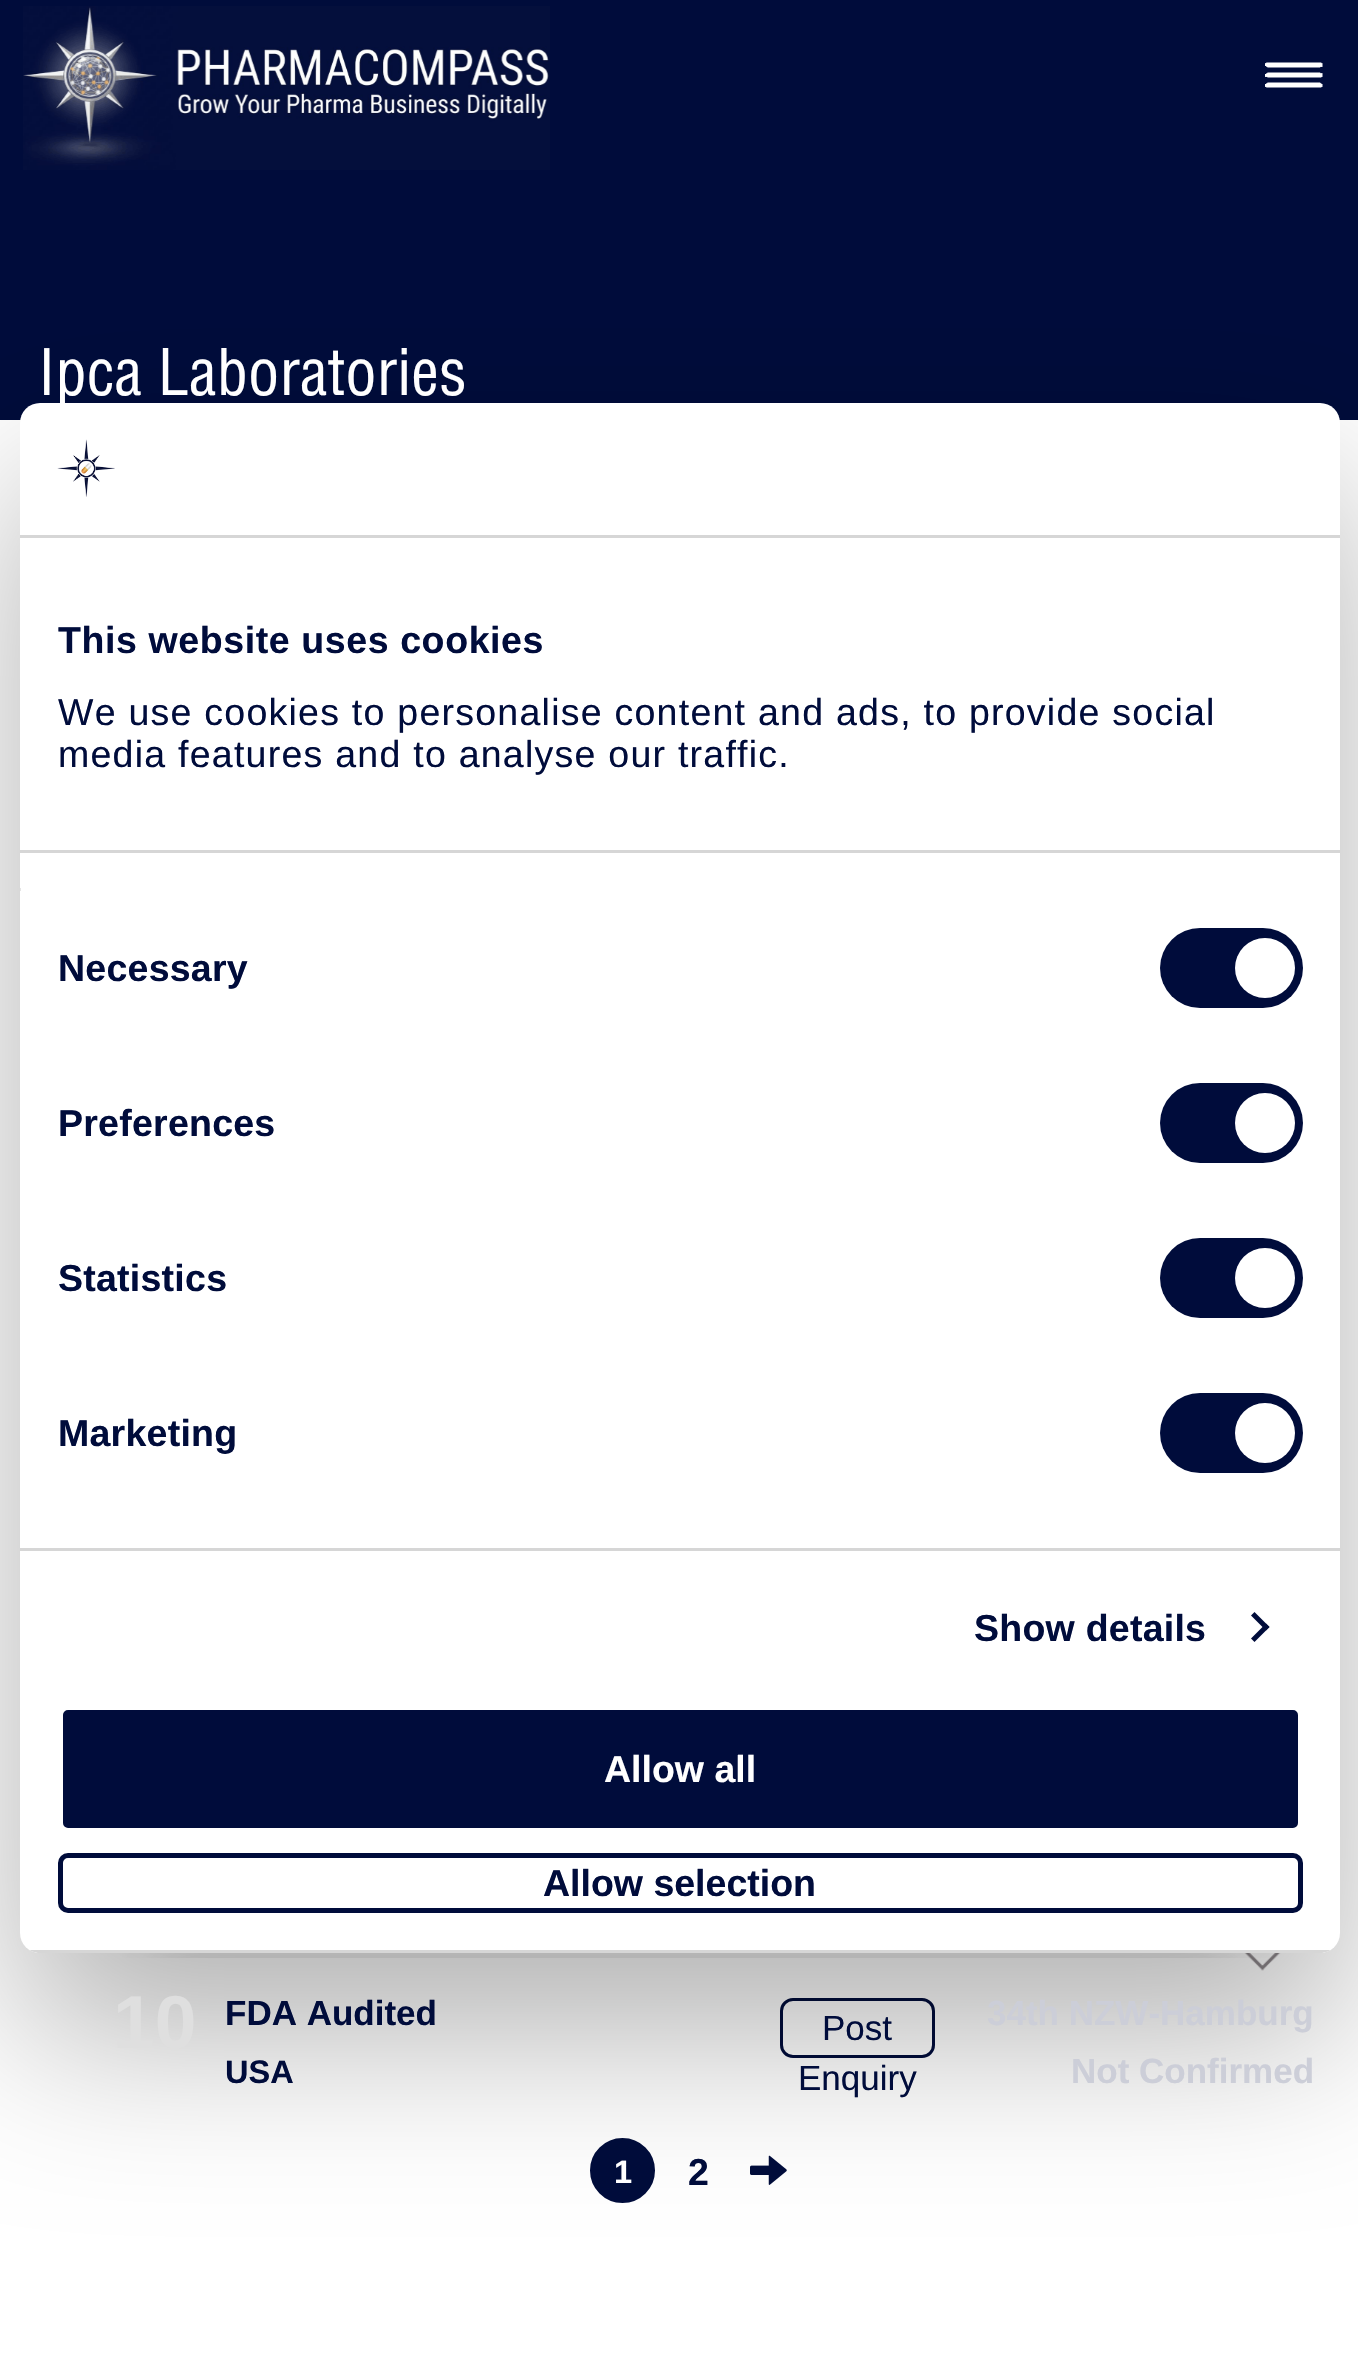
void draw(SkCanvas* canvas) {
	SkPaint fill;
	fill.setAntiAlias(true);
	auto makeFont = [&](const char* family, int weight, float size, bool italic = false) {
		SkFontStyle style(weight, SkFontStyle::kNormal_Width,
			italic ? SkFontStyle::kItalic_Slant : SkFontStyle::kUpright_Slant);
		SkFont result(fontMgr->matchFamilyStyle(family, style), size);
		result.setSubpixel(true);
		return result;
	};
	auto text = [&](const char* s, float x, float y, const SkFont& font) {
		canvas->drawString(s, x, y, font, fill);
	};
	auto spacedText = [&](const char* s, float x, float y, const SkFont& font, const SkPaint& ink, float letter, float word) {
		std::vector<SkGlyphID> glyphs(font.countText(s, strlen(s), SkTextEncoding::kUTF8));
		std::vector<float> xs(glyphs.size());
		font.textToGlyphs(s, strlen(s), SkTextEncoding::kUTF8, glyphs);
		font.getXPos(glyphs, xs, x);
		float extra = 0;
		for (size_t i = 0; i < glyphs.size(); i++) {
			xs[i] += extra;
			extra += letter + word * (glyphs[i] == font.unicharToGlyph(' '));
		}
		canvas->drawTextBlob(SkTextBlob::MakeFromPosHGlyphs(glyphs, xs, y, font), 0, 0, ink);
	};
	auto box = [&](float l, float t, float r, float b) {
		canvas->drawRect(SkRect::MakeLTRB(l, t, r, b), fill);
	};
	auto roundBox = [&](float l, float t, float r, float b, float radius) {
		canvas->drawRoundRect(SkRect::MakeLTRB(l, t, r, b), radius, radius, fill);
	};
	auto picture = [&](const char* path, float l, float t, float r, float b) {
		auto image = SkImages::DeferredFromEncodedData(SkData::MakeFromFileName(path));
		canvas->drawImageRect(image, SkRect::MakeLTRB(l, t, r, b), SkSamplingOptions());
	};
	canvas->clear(0xFF000C3B);
	picture("image0.png", 23, 6, 550, 170);
	picture("image1.png", 1265, 62, 1323, 88);
	fill.setColor(0xFFFFFFFF);
	box(0, 420, 1358, 2354);
	canvas->save();
	canvas->clipRect(SkRect::MakeLTRB(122, 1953, 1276, 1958));
	fill.setColor(0xFFD9D9D9);
	fill.setMaskFilter(SkMaskFilter::MakeBlur(kNormal_SkBlurStyle, 25));
	canvas->drawRect(SkRect::MakeLTRB(163, 1963, 1235, 2035), fill);
	fill.setMaskFilter(nullptr);
	canvas->restore();
	picture("image3.png", 1244, 1953, 1281, 1971);
	fill.setStyle(SkPaint::kStroke_Style);
	fill.setStrokeWidth(3);
	fill.setColor(0xFF000C3B);
	canvas->drawRoundRect(SkRect::MakeLTRB(781.5f, 1999.5f, 933.5f, 2056.5f), 11.5f, 11.5f, fill);
	fill.setStyle(SkPaint::kFill_Style);
	canvas->drawCircle(622.5f, 2170.5f, 31, fill);
	fill.setStyle(SkPaint::kStroke_Style);
	canvas->drawCircle(622.5f, 2170.5f, 31, fill);
	picture("image4.png", 750, 2155, 787, 2185);
	fill.setStyle(SkPaint::kFill_Style);
	fill.setColor(0x4D000000);
	fill.setMaskFilter(SkMaskFilter::MakeBlur(kNormal_SkBlurStyle, 85));
	canvas->drawRoundRect(SkRect::MakeLTRB(20, 483, 1340, 2033), 20, 20, fill);
	fill.setMaskFilter(nullptr);
	fill.setColor(0xFFFFFFFF);
	roundBox(20, 403, 1340, 1953, 20);
	fill.setColor(0xFFD6D6D6);
	box(20, 535, 1340, 538);
	picture("image2.png", 57, 439, 115, 497);
	box(20, 850, 1340, 853);
	box(20, 1548, 1340, 1551);
	fill.setColor(0xFFE5E5E5);
	box(20, 888, 21, 891);
	fill.setColor(0xFF000C3B);
	roundBox(1160, 928, 1303, 1008, 40);
	fill.setColor(0xFFFFFFFF);
	canvas->drawCircle(1265, 968, 30, fill);
	fill.setColor(0xFF000C3B);
	roundBox(1160, 1083, 1303, 1163, 40);
	fill.setColor(0xFFFFFFFF);
	canvas->drawCircle(1265, 1123, 30, fill);
	fill.setColor(0xFF000C3B);
	roundBox(1160, 1238, 1303, 1318, 40);
	fill.setColor(0xFFFFFFFF);
	canvas->drawCircle(1265, 1278, 30, fill);
	fill.setColor(0xFF000C3B);
	roundBox(1160, 1393, 1303, 1473, 40);
	fill.setColor(0xFFFFFFFF);
	canvas->drawCircle(1265, 1433, 30, fill);
	fill.setColor(0xFF000C3B);
	canvas->drawPath(SkPathBuilder().moveTo(1254.5f, 1612).lineTo(1269.5f, 1627).lineTo(1266, 1630.5f).lineTo(1251, 1615.5f).close().detach(), fill);
	canvas->drawPath(SkPathBuilder().moveTo(1266, 1623.5f).lineTo(1269.5f, 1627).lineTo(1254.5f, 1642).lineTo(1251, 1638.5f).close().detach(), fill);
	canvas->save();
	canvas->clipPath(SkPathBuilder().moveTo(40, 403).lineTo(1320, 403).cubicTo(1331, 403, 1340, 412, 1340, 423).lineTo(1340, 1933).cubicTo(1340, 1944, 1331, 1953, 1320, 1953).lineTo(40, 1953).cubicTo(29, 1953, 20, 1944, 20, 1933).lineTo(20, 423).cubicTo(20, 412, 29, 403, 40, 403).close().detach(), true);
	fill.setColor(0xFFD6D6D6);
	box(29, 1950, 1331, 1953);
	canvas->restore();
	fill.setColor(0xFF000C3B);
	canvas->drawRoundRect(SkRect::MakeLTRB(60.5f, 1707.5f, 1300.5f, 1830.5f), 7.5f, 7.5f, fill);
	fill.setStyle(SkPaint::kStroke_Style);
	fill.setStrokeWidth(5);
	fill.setColor(0xFFFFFFFF);
	canvas->drawRoundRect(SkRect::MakeLTRB(60.5f, 1707.5f, 1300.5f, 1830.5f), 7.5f, 7.5f, fill);
	fill.setColor(0xFF000C3B);
	canvas->drawRoundRect(SkRect::MakeLTRB(60.5f, 1855.5f, 1300.5f, 1910.5f), 7.5f, 7.5f, fill);
	auto font1 = makeFont("Helvetica", 500, 62.5f);
	fill.setStyle(SkPaint::kFill_Style);
	fill.setColor(0xFFFFFFFF);
	text("Ipca Laboratories", 38, 395, font1);
	auto font2 = makeFont("Liberation Sans", 700, 37.5f);
	fill.setColor(0xFF000C3B);
	spacedText("This website uses cookies", 58, 653, font2, fill, 0.6f, 0);
	auto font3 = makeFont("Liberation Sans", 400, 37.5f);
	spacedText("We use cookies to personalise content and ads, to provide social", 58, 725, font3, fill, 1.25f, 0);
	spacedText("media features and to analyse our traffic.", 58, 767, font3, fill, 1.25f, 0);
	spacedText("Necessary", 58, 981, font2, fill, 0.25f, 0);
	spacedText("Preferences", 58, 1136, font2, fill, 0.25f, 0);
	spacedText("Statistics", 58, 1291, font2, fill, 0.25f, 0);
	spacedText("Marketing", 58, 1446, font2, fill, 0.25f, 0);
	spacedText("Show details", 974, 1641, font2, fill, 0.25f, 0);
	fill.setColor(0xFFFFFFFF);
	text("Allow all", 604, 1782, font2);
	fill.setColor(0xFF000C3B);
	text("Allow selection", 543, 1896, font2);
	auto font4 = makeFont("Liberation Sans", 700, 75);
	fill.setColor(0xFFDFDFDF);
	text("10", 113, 2048, font4);
	auto font5 = makeFont("Liberation Sans", 700, 35);
	fill.setColor(0xFF000C3B);
	text("FDA Audited", 225, 2025, font5);
	auto font6 = makeFont("Liberation Sans", 700, 32.5f);
	text("USA", 225, 2083, font6);
	auto font7 = makeFont("Liberation Sans", 400, 35);
	text("Post", 822, 2040, font7);
	text("Enquiry", 798, 2090, font7);
	fill.setColor(0xFFCCCED8);
	text("34th NZW-Hamburg", 987, 2025, font5);
	text("Not Confirmed", 1071, 2083, font5);
	fill.setColor(0xFFFFFFFF);
	text("1", 614, 2183, font6);
	fill.setColor(0xFF000C3B);
	text("2", 688, 2185, font2);
}
